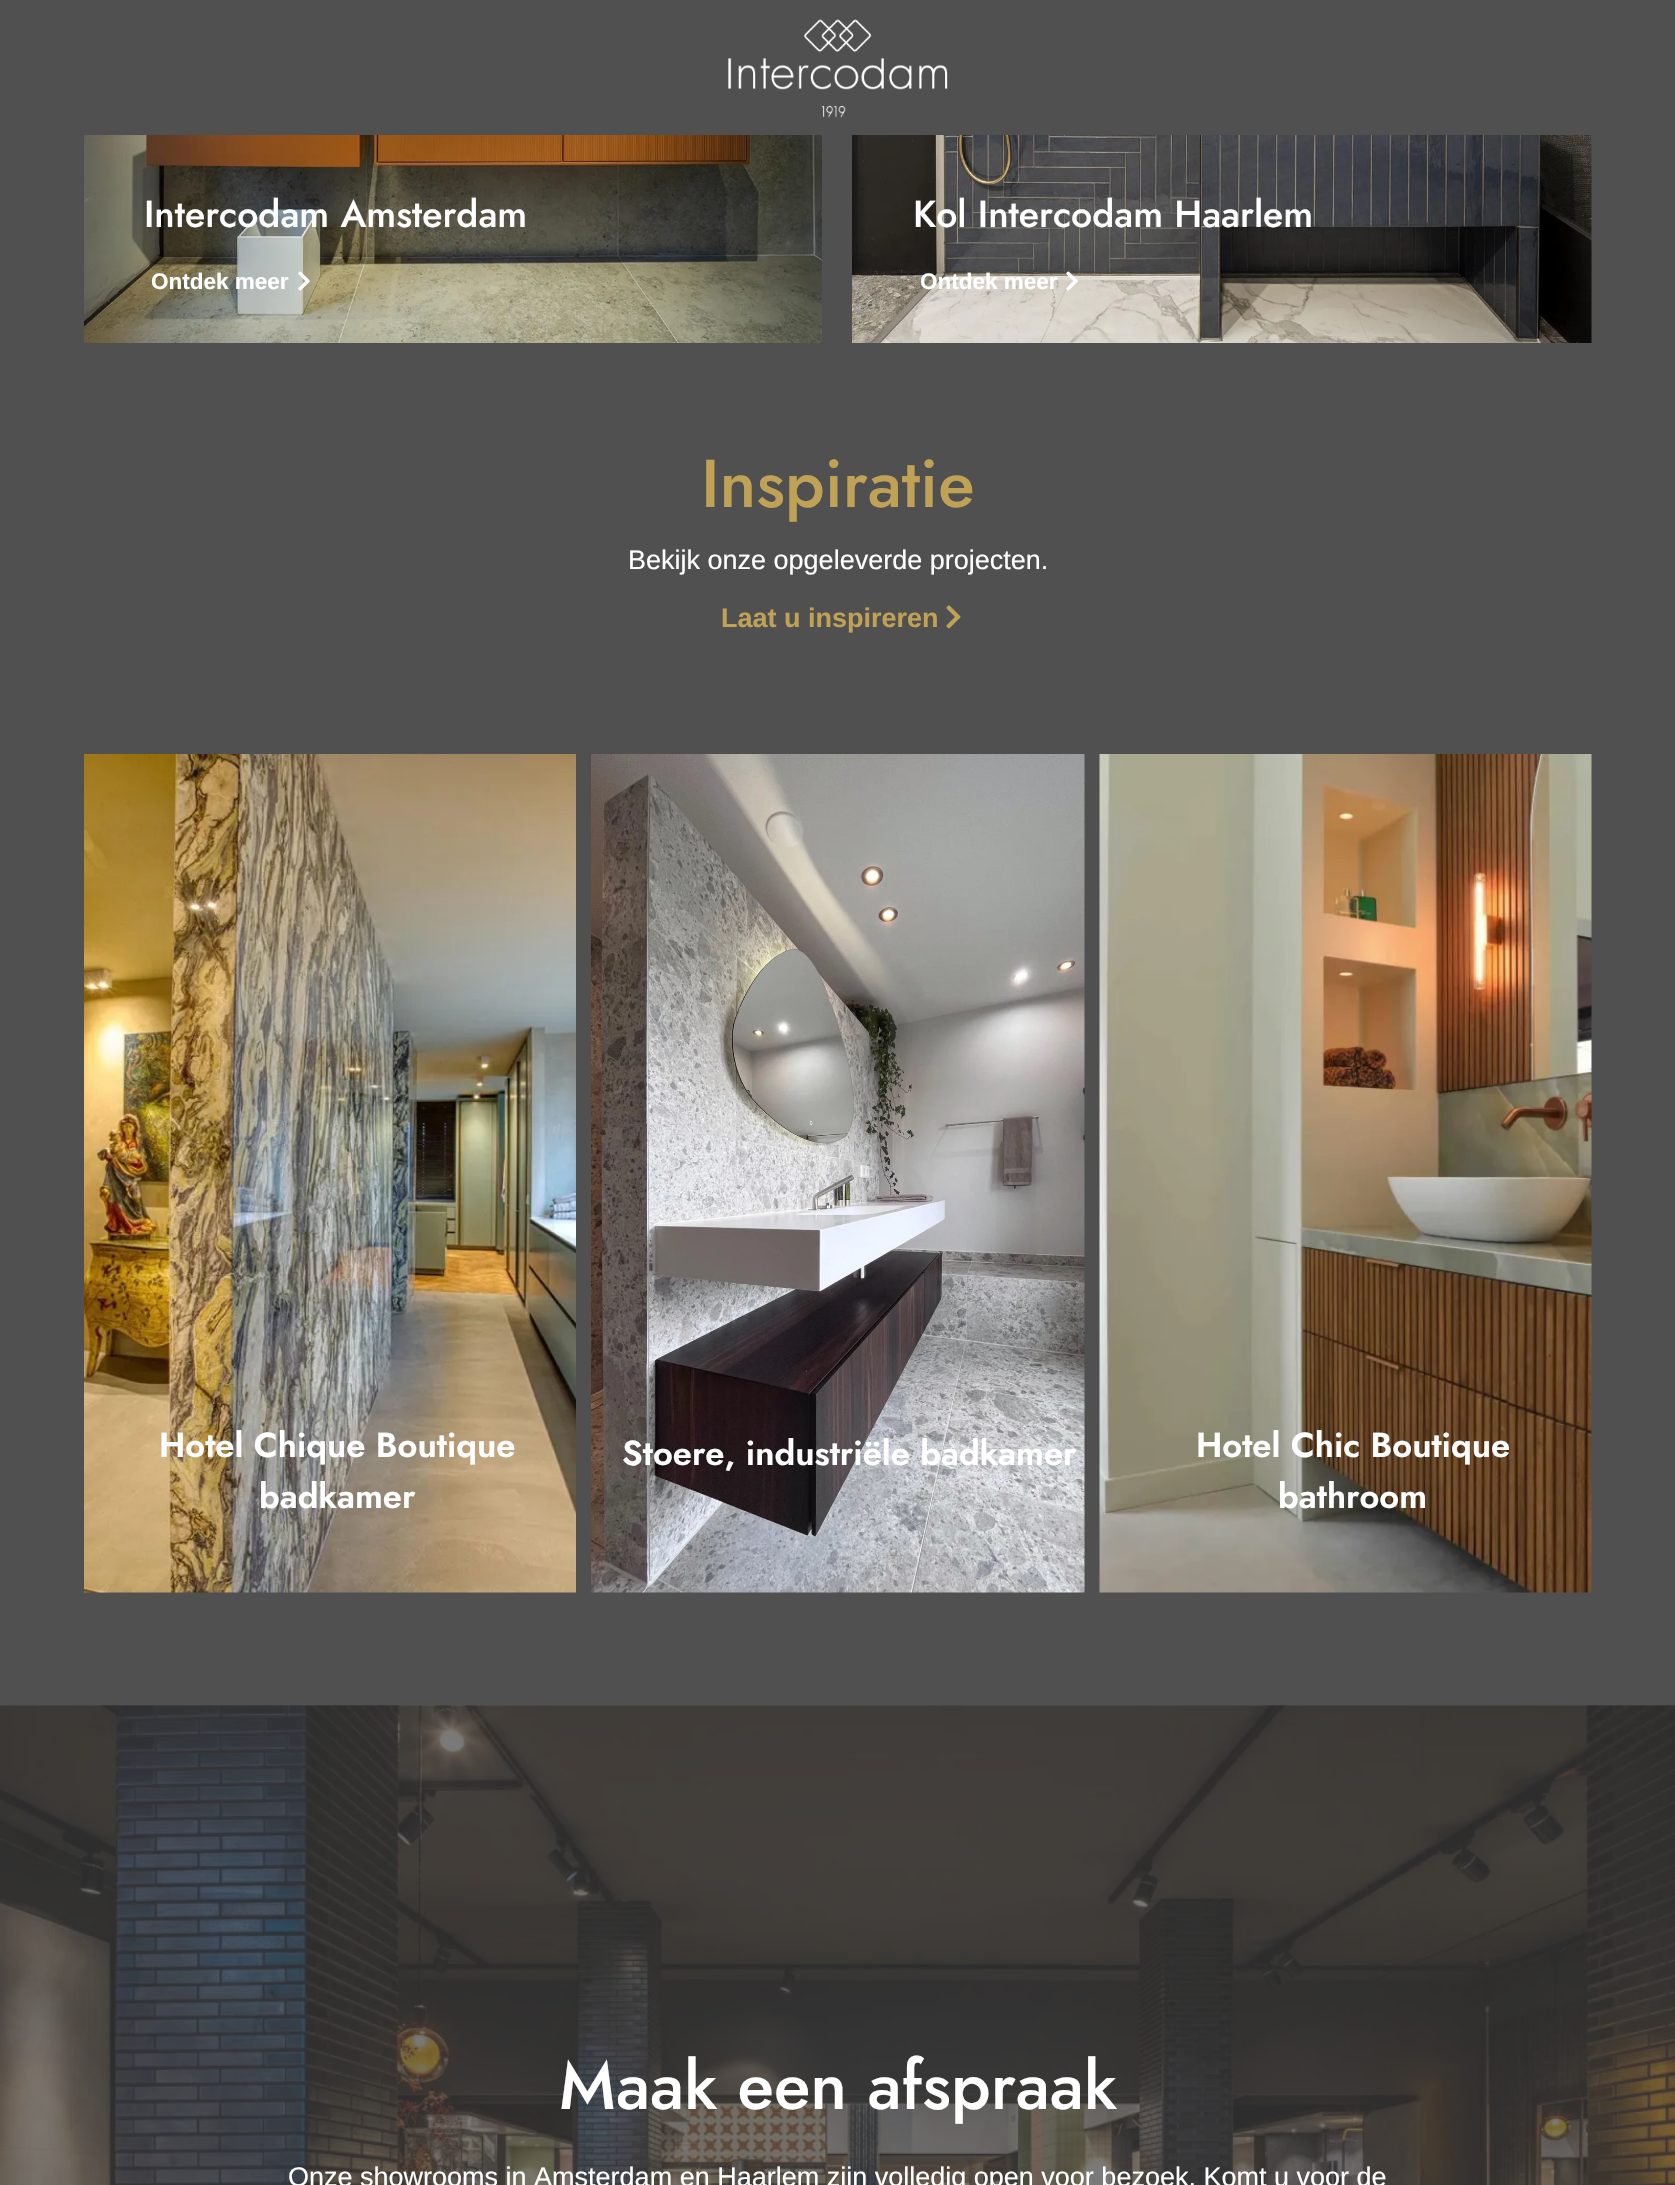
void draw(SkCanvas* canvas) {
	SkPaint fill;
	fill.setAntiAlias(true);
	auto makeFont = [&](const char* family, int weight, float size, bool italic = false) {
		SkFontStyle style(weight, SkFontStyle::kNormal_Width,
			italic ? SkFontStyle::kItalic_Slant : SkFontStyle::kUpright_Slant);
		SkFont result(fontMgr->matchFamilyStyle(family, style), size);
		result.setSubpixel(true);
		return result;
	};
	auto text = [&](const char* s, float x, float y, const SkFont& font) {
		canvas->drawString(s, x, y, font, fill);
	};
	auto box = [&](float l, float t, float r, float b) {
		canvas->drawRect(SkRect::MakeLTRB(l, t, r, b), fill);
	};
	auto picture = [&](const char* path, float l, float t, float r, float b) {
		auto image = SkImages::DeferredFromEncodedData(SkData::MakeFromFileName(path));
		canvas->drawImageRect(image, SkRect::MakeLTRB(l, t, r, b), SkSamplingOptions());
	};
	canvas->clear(0xFF505050);
	picture("image0.png", 728, 19, 948, 118);
	picture("image1.png", 84, 135, 822, 343);
	picture("image2.png", 298, 271, 310, 291);
	picture("image3.png", 852, 135, 1592, 343);
	picture("image4.png", 1066, 271, 1078, 291);
	picture("image5.png", 946, 605, 961, 629);
	picture("image6.png", 84, 754, 576, 1593);
	picture("image7.png", 591, 754, 1085, 1593);
	picture("image8.png", 1099, 754, 1592, 1593);
	fill.setColor(0xFF404040);
	box(0, 1706, 1675, 2185);
	picture("image9.png", 0, 1705, 1675, 2185);
	auto font1 = makeFont("Jost", 500, 37.5f);
	fill.setColor(0xFFFFFFFF);
	text("Intercodam Amsterdam", 144, 227, font1);
	auto font2 = makeFont("Liberation Sans", 700, 22.5f);
	text("Ontdek meer", 151, 289, font2);
	text("Kol Intercodam Haarlem", 913, 227, font1);
	text("Ontdek meer", 920, 289, font2);
	auto font3 = makeFont("Jost", 500, 67.5f);
	fill.setColor(0xFFC0A256);
	text("Inspiratie", 701, 507, font3);
	auto font4 = makeFont("Liberation Sans", 400, 27);
	fill.setColor(0xFFFFFFFF);
	text("Bekijk onze opgeleverde projecten.", 628, 569, font4);
	auto font5 = makeFont("Liberation Sans", 700, 27);
	fill.setColor(0xFFC0A256);
	text("Laat u inspireren", 721, 627, font5);
	auto font6 = makeFont("Jost", 600, 34.5f);
	fill.setColor(0xFFFFFFFF);
	text("Hotel Chique Boutique", 159, 1457, font6);
	text("badkamer", 259, 1508, font6);
	text("Stoere, industriële badkamer", 622, 1465, font6);
	text("Hotel Chic Boutique", 1196, 1457, font6);
	text("bathroom", 1278, 1508, font6);
	text("Maak een afspraak", 559, 2109, font3);
	text("Onze showrooms in Amsterdam en Haarlem zijn volledig open voor bezoek. Komt u voor de", 288, 2186, font4);
}
